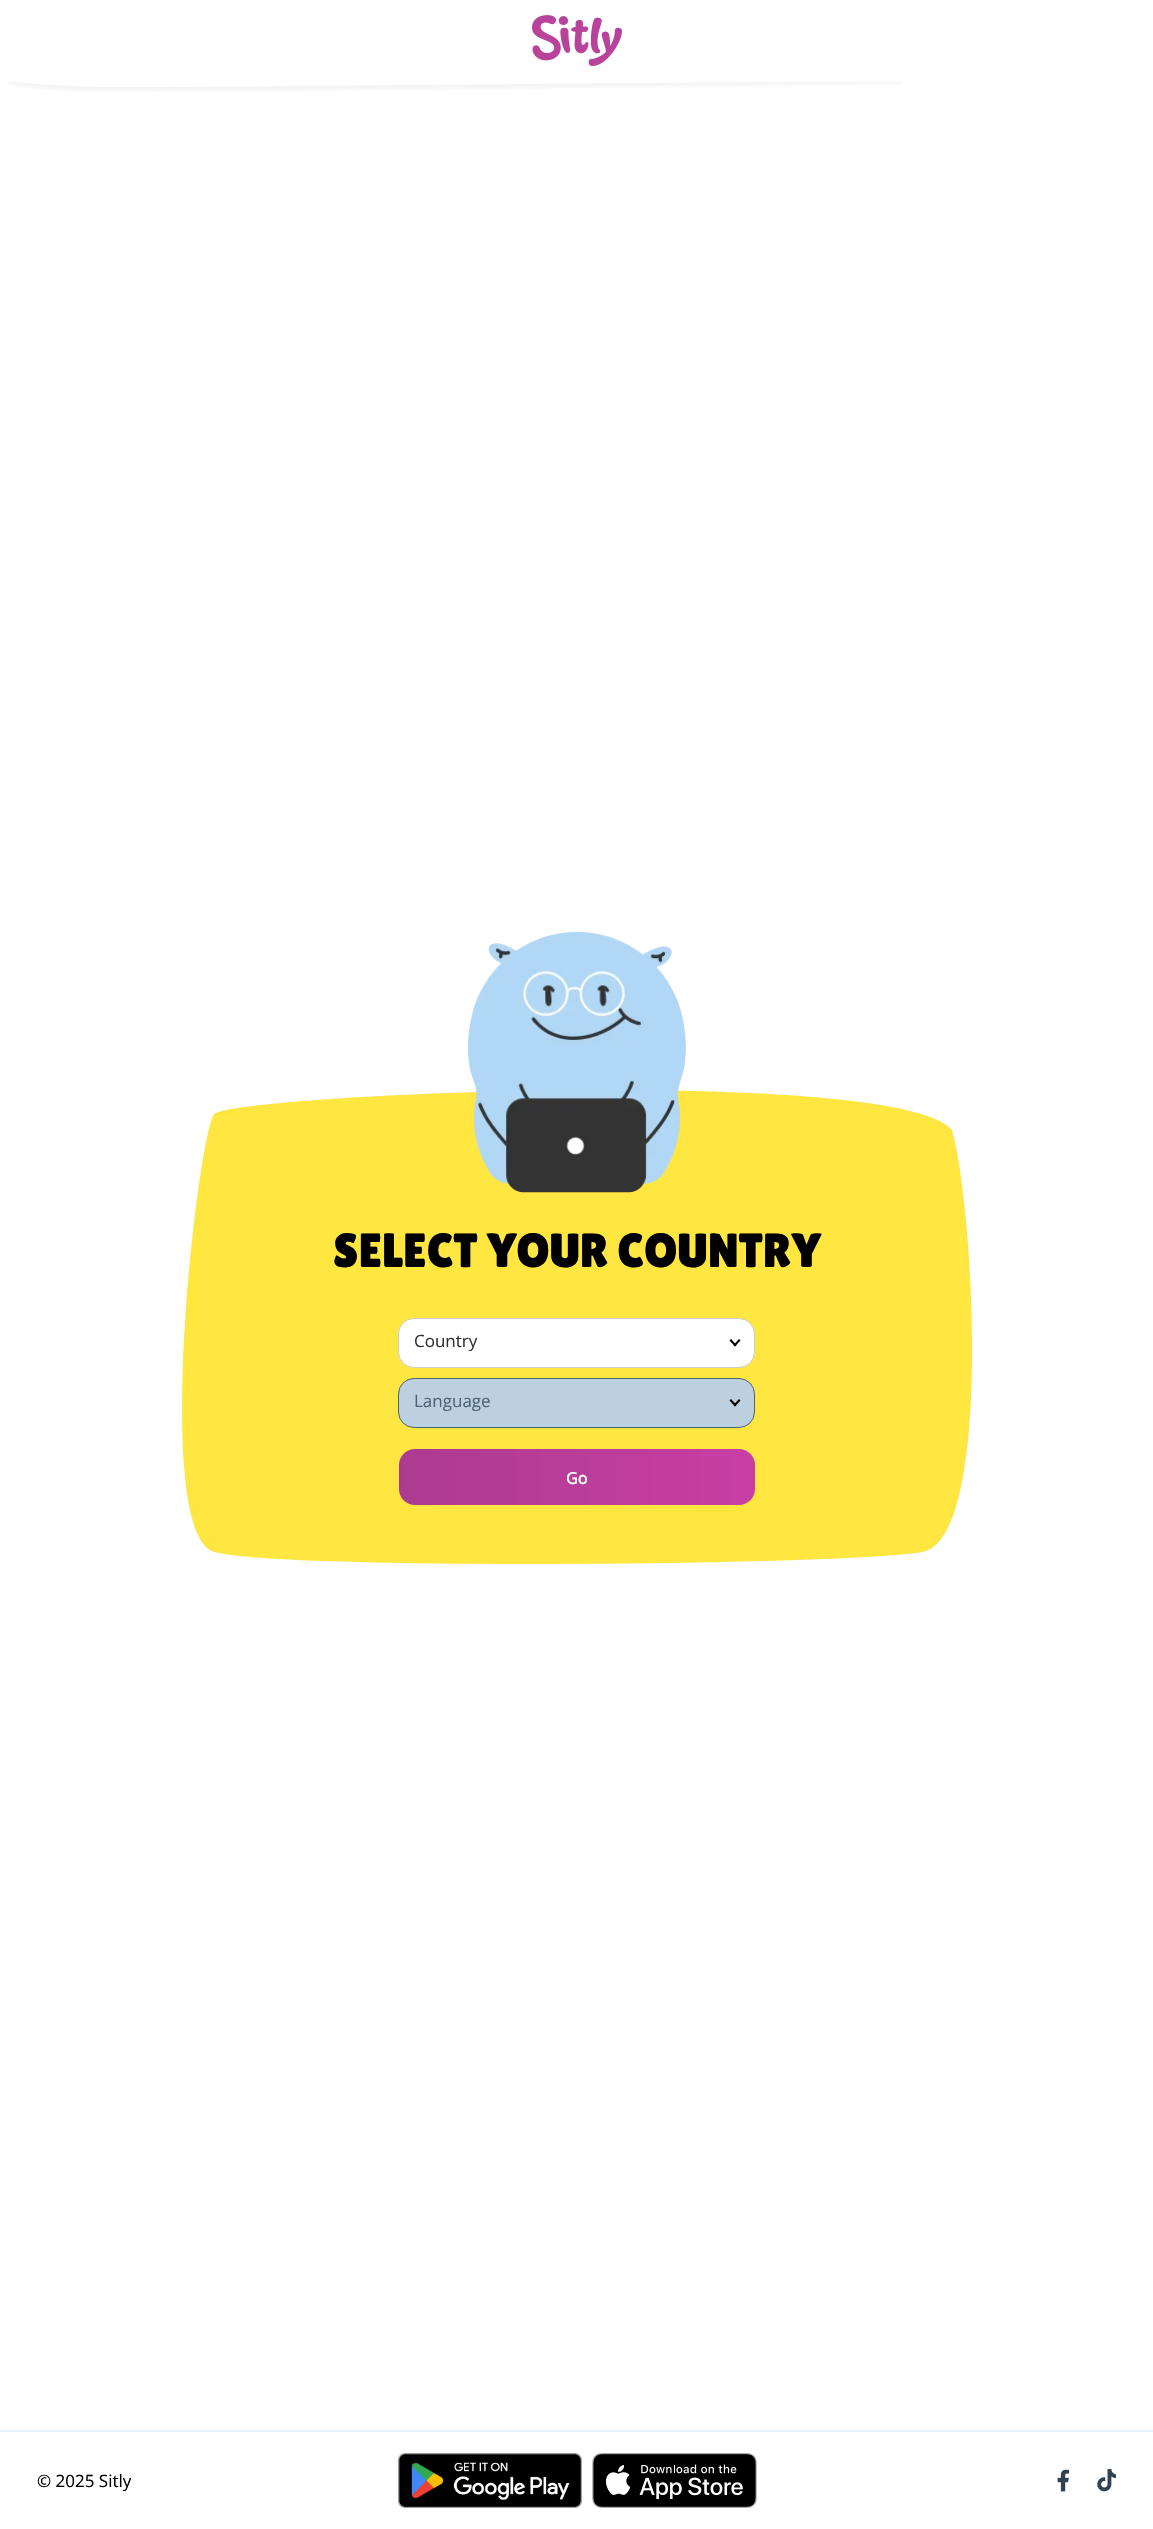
void draw(SkCanvas* canvas) {
	SkPaint fill;
	fill.setAntiAlias(true);
	auto makeFont = [&](const char* family, int weight, float size, bool italic = false) {
		SkFontStyle style(weight, SkFontStyle::kNormal_Width,
			italic ? SkFontStyle::kItalic_Slant : SkFontStyle::kUpright_Slant);
		SkFont result(fontMgr->matchFamilyStyle(family, style), size);
		result.setSubpixel(true);
		return result;
	};
	auto text = [&](const char* s, float x, float y, const SkFont& font) {
		canvas->drawString(s, x, y, font, fill);
	};
	auto box = [&](float l, float t, float r, float b) {
		canvas->drawRect(SkRect::MakeLTRB(l, t, r, b), fill);
	};
	auto roundBox = [&](float l, float t, float r, float b, float radius) {
		canvas->drawRoundRect(SkRect::MakeLTRB(l, t, r, b), radius, radius, fill);
	};
	auto picture = [&](const char* path, float l, float t, float r, float b) {
		auto image = SkImages::DeferredFromEncodedData(SkData::MakeFromFileName(path));
		canvas->drawImageRect(image, SkRect::MakeLTRB(l, t, r, b), SkSamplingOptions());
	};
	canvas->clear(0xFFFFFFFF);
	picture("image0.png", 7, 81, 902, 92);
	picture("image1.png", 532, 15, 622, 66);
	picture("image3.png", 182, 1090, 972, 1564);
	picture("image2.png", 468, 931, 686, 1193);
	fill.setColor(0xFFFFFFFF);
	canvas->drawRoundRect(SkRect::MakeLTRB(398.5f, 1318.5f, 754.5f, 1367.5f), 15.5f, 15.5f, fill);
	fill.setStyle(SkPaint::kStroke_Style);
	fill.setStrokeWidth(1);
	fill.setColor(0xFFCCCCCC);
	canvas->drawRoundRect(SkRect::MakeLTRB(398.5f, 1318.5f, 754.5f, 1367.5f), 15.5f, 15.5f, fill);
	fill.setStyle(SkPaint::kFill_Style);
	fill.setColor(0xFF000000);
	canvas->drawPath(SkPathBuilder().moveTo(739, 1339).lineTo(740.5f, 1340.5f).lineTo(735, 1346.5f).lineTo(733.5f, 1345).close().detach(), fill);
	canvas->drawPath(SkPathBuilder().moveTo(731, 1339).lineTo(736.5f, 1345).lineTo(735, 1346.5f).lineTo(729.5f, 1340.5f).close().detach(), fill);
	fill.setColor(0xFFBCD0E0);
	canvas->drawRoundRect(SkRect::MakeLTRB(398.5f, 1378.5f, 754.5f, 1427.5f), 15.5f, 15.5f, fill);
	fill.setStyle(SkPaint::kStroke_Style);
	fill.setColor(0xFF4C6377);
	canvas->drawRoundRect(SkRect::MakeLTRB(398.5f, 1378.5f, 754.5f, 1427.5f), 15.5f, 15.5f, fill);
	fill.setStyle(SkPaint::kFill_Style);
	fill.setColor(0xFF000000);
	canvas->drawPath(SkPathBuilder().moveTo(739, 1399).lineTo(740.5f, 1400.5f).lineTo(735, 1406.5f).lineTo(733.5f, 1405).close().detach(), fill);
	canvas->drawPath(SkPathBuilder().moveTo(731, 1399).lineTo(736.5f, 1405).lineTo(735, 1406.5f).lineTo(729.5f, 1400.5f).close().detach(), fill);
	{
		const SkColor colors[] = {0xFFAC3B8F, 0xFFC93EA5};
		const float stops[] = {0, 1};
		const SkPoint ends[] = {{399, 1477}, {755, 1477}};
		fill.setShader(SkGradientShader::MakeLinear(ends, colors, stops, 2, SkTileMode::kClamp));
		fill.setAlpha(255);
	}
	roundBox(399, 1449, 755, 1505, 16);
	fill.setShader(nullptr);
	fill.setColor(0xFFE8F1F9);
	box(0, 2430, 1153, 2432);
	picture("image4.png", 398, 2453, 582, 2508);
	picture("image5.png", 592, 2453, 757, 2508);
	picture("image6.png", 1057, 2469, 1069, 2492);
	picture("image7.png", 1097, 2469, 1116, 2492);
	auto font1 = makeFont("Lilita One", 400, 48);
	fill.setColor(0xFF000000);
	text("SELECT YOUR COUNTRY", 333, 1267, font1);
	auto font2 = makeFont("Open Sans", 400, 17);
	fill.setColor(0xFF333333);
	text("Country", 414, 1347, font2);
	fill.setColor(0xFF4C6377);
	text("Language", 414, 1407, font2);
	auto font3 = makeFont("Open Sans", 700, 16);
	fill.setColor(0xFFFFFFFF);
	text("Go", 566, 1484, font3);
	fill.setColor(0xFF000000);
	text("© 2025 Sitly", 37, 2487, font2);
}
